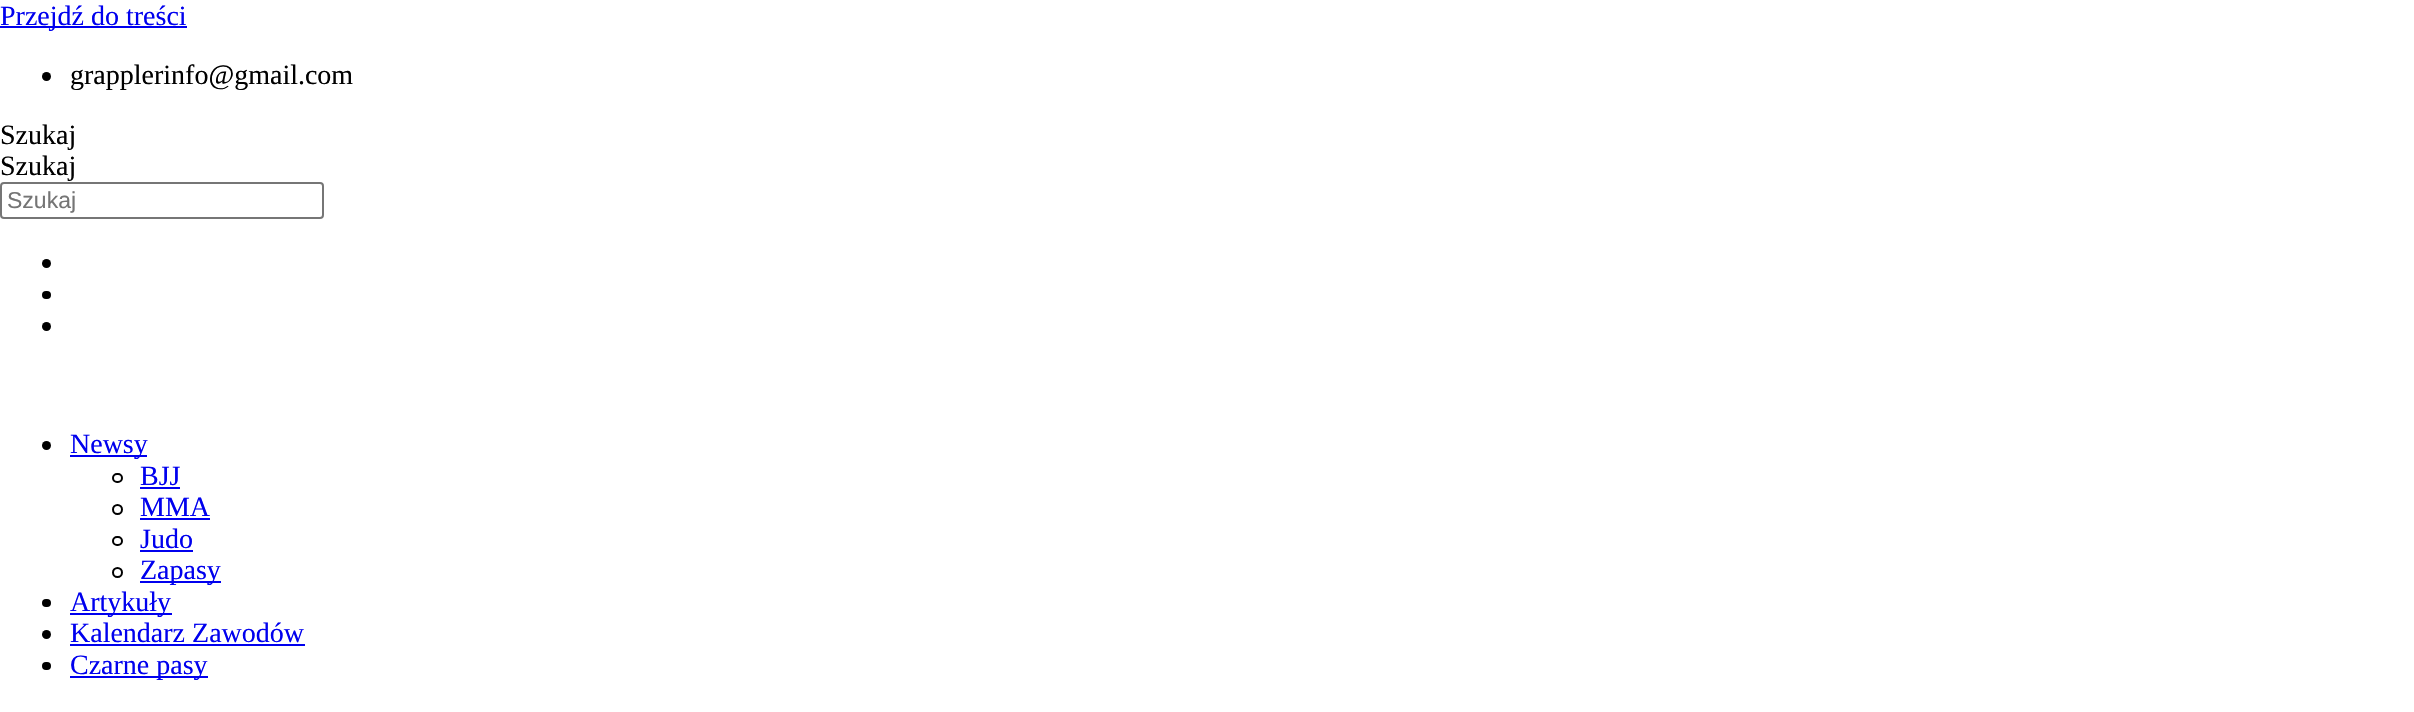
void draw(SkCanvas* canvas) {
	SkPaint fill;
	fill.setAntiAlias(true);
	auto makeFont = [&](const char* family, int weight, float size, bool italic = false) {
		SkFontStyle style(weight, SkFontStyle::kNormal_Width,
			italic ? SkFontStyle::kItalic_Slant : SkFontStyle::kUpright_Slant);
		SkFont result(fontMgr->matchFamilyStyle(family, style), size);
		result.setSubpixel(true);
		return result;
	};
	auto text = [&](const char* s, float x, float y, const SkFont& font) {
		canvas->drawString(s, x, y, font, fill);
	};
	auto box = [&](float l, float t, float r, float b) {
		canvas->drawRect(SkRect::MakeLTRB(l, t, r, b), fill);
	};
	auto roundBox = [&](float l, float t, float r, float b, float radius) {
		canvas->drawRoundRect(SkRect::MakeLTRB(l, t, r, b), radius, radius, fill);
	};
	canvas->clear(0xFFFFFFFF);
	fill.setColor(0xFF0000EE);
	box(0, 26, 187, 28);
	fill.setColor(0xFF000000);
	canvas->drawCircle(46.5f, 76.5f, 4.5f, fill);
	fill.setStyle(SkPaint::kStroke_Style);
	fill.setStrokeWidth(2);
	fill.setColor(0xFF767676);
	canvas->drawRoundRect(SkRect::MakeLTRB(1, 183, 323, 218), 3, 3, fill);
	fill.setStyle(SkPaint::kFill_Style);
	fill.setColor(0xFF000000);
	canvas->drawCircle(46.5f, 263.5f, 4.5f, fill);
	roundBox(42, 291, 51, 299, 4);
	canvas->drawCircle(46.5f, 326.5f, 4.5f, fill);
	canvas->drawCircle(46.5f, 445.5f, 4.5f, fill);
	fill.setColor(0xFF0000EE);
	box(70, 455, 147, 457);
	fill.setStyle(SkPaint::kStroke_Style);
	fill.setColor(0xFF000000);
	canvas->drawRoundRect(SkRect::MakeLTRB(113, 474, 122, 482), 4, 4, fill);
	fill.setStyle(SkPaint::kFill_Style);
	fill.setColor(0xFF0000EE);
	box(140, 487, 180, 489);
	fill.setStyle(SkPaint::kStroke_Style);
	fill.setColor(0xFF000000);
	canvas->drawCircle(117.5f, 509.5f, 4.5f, fill);
	fill.setStyle(SkPaint::kFill_Style);
	fill.setColor(0xFF0000EE);
	box(140, 518, 210, 520);
	fill.setStyle(SkPaint::kStroke_Style);
	fill.setColor(0xFF000000);
	canvas->drawRoundRect(SkRect::MakeLTRB(113, 537, 122, 545), 4, 4, fill);
	fill.setStyle(SkPaint::kFill_Style);
	fill.setColor(0xFF0000EE);
	box(140, 550, 193, 552);
	fill.setStyle(SkPaint::kStroke_Style);
	fill.setColor(0xFF000000);
	canvas->drawCircle(117.5f, 572.5f, 4.5f, fill);
	fill.setStyle(SkPaint::kFill_Style);
	fill.setColor(0xFF0000EE);
	box(140, 581, 221, 583);
	fill.setColor(0xFF000000);
	roundBox(42, 599, 51, 607, 4);
	fill.setColor(0xFF0000EE);
	box(70, 613, 172, 615);
	fill.setColor(0xFF000000);
	canvas->drawCircle(46.5f, 634.5f, 4.5f, fill);
	fill.setColor(0xFF0000EE);
	box(70, 644, 305, 646);
	fill.setColor(0xFF000000);
	roundBox(42, 662, 51, 670, 4);
	fill.setColor(0xFF0000EE);
	box(70, 676, 208, 678);
	auto font1 = makeFont("Liberation Serif", 400, 28);
	text("Przejdź do treści", 0, 25, font1);
	fill.setColor(0xFF000000);
	text("grapplerinfo@gmail.com", 70, 84, font1);
	text("Szukaj", 0, 144, font1);
	text("Szukaj", 0, 175, font1);
	auto font2 = makeFont("Liberation Sans", 400, 23);
	fill.setColor(0xFF757575);
	text("Szukaj", 7, 208, font2);
	fill.setColor(0xFF0000EE);
	text("Newsy", 70, 453, font1);
	text("BJJ", 140, 485, font1);
	text("MMA", 140, 516, font1);
	text("Judo", 140, 548, font1);
	text("Zapasy", 140, 579, font1);
	text("Artykuły", 70, 611, font1);
	text("Kalendarz Zawodów", 70, 642, font1);
	text("Czarne pasy", 70, 674, font1);
}
